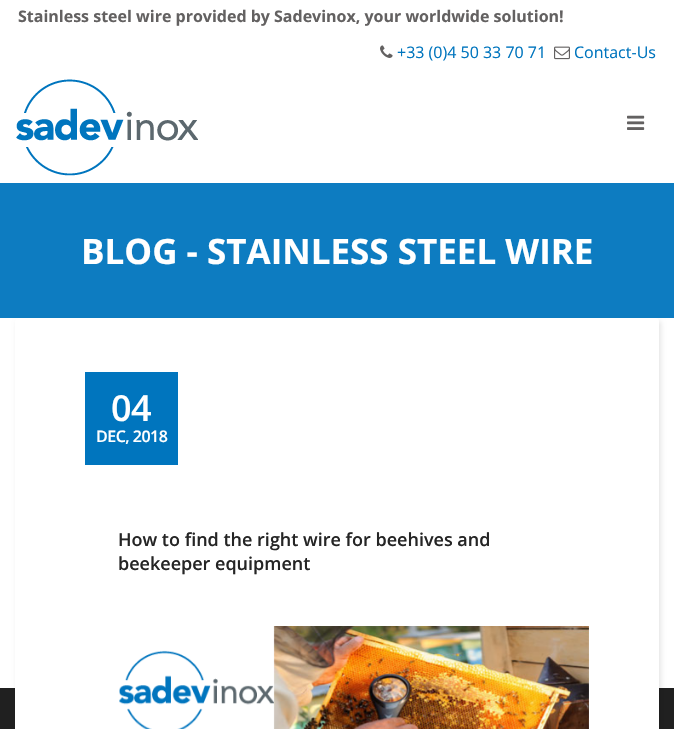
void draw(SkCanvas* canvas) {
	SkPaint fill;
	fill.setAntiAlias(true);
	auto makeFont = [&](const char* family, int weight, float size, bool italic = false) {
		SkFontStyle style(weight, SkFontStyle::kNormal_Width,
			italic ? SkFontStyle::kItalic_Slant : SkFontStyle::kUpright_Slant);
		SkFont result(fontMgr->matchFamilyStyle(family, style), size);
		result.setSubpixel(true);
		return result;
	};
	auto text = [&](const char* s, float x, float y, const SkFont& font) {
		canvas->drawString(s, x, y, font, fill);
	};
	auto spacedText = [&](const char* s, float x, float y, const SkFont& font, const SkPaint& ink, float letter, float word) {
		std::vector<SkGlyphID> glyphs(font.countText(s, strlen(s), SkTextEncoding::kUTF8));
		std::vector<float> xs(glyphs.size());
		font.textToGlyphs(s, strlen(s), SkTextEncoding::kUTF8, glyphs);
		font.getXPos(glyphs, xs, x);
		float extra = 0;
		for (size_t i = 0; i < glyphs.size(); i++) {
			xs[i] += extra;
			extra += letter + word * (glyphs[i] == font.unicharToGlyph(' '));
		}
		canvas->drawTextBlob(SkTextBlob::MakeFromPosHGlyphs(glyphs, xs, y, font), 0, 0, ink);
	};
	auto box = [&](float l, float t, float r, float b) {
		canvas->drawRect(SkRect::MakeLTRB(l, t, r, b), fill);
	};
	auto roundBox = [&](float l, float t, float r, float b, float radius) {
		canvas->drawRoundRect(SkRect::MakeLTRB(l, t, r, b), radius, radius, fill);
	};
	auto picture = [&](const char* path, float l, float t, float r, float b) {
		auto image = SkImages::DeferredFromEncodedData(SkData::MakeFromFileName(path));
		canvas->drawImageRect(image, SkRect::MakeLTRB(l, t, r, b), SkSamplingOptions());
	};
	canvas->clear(0xFFFFFFFF);
	picture("image0.png", 380, 45, 393, 58);
	picture("image1.png", 554, 46, 570, 60);
	picture("image2.png", 16, 79, 198, 176);
	picture("image3.png", 627, 115, 645, 130);
	fill.setColor(0xFF0D7CC1);
	box(0, 183, 674, 318);
	fill.setColor(0xFF202020);
	box(0, 688, 674, 729);
	fill.setColor(0x1A000000);
	fill.setMaskFilter(SkMaskFilter::MakeBlur(kNormal_SkBlurStyle, 2.5f));
	canvas->drawRoundRect(SkRect::MakeLTRB(17, 321, 661, 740), 3, 3, fill);
	fill.setMaskFilter(nullptr);
	fill.setColor(0xFFFFFFFF);
	roundBox(15, 318, 659, 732, 3);
	fill.setColor(0xFF0075BE);
	box(85, 372, 178, 465);
	picture("image4.png", 119, 650, 274, 729);
	picture("image5.png", 273, 626, 589, 729);
	auto font1 = makeFont("Open Sans", 700, 16);
	fill.setColor(0xFF636161);
	text("Stainless steel wire provided by Sadevinox, your worldwide solution!", 18, 22, font1);
	auto font2 = makeFont("Open Sans", 400, 16);
	fill.setColor(0xFF0075BE);
	text("+33 (0)4 50 33 70 71", 397, 58, font2);
	text("Contact-Us", 574, 58, font2);
	auto font3 = makeFont("Open Sans", 700, 35);
	fill.setColor(0xFFFFFFFF);
	text("BLOG - STAINLESS STEEL WIRE", 81, 264, font3);
	auto font4 = makeFont("Open Sans", 600, 36);
	spacedText("04", 111, 421, font4, fill, -0.5f, 0);
	auto font5 = makeFont("Open Sans", 600, 16);
	spacedText("DEC, 2018", 96, 442, font5, fill, -0.5f, 0);
	auto font6 = makeFont("Open Sans", 600, 18);
	fill.setColor(0xFF252525);
	text("How to find the right wire for beehives and", 118, 546, font6);
	text("beekeeper equipment", 118, 570, font6);
}
